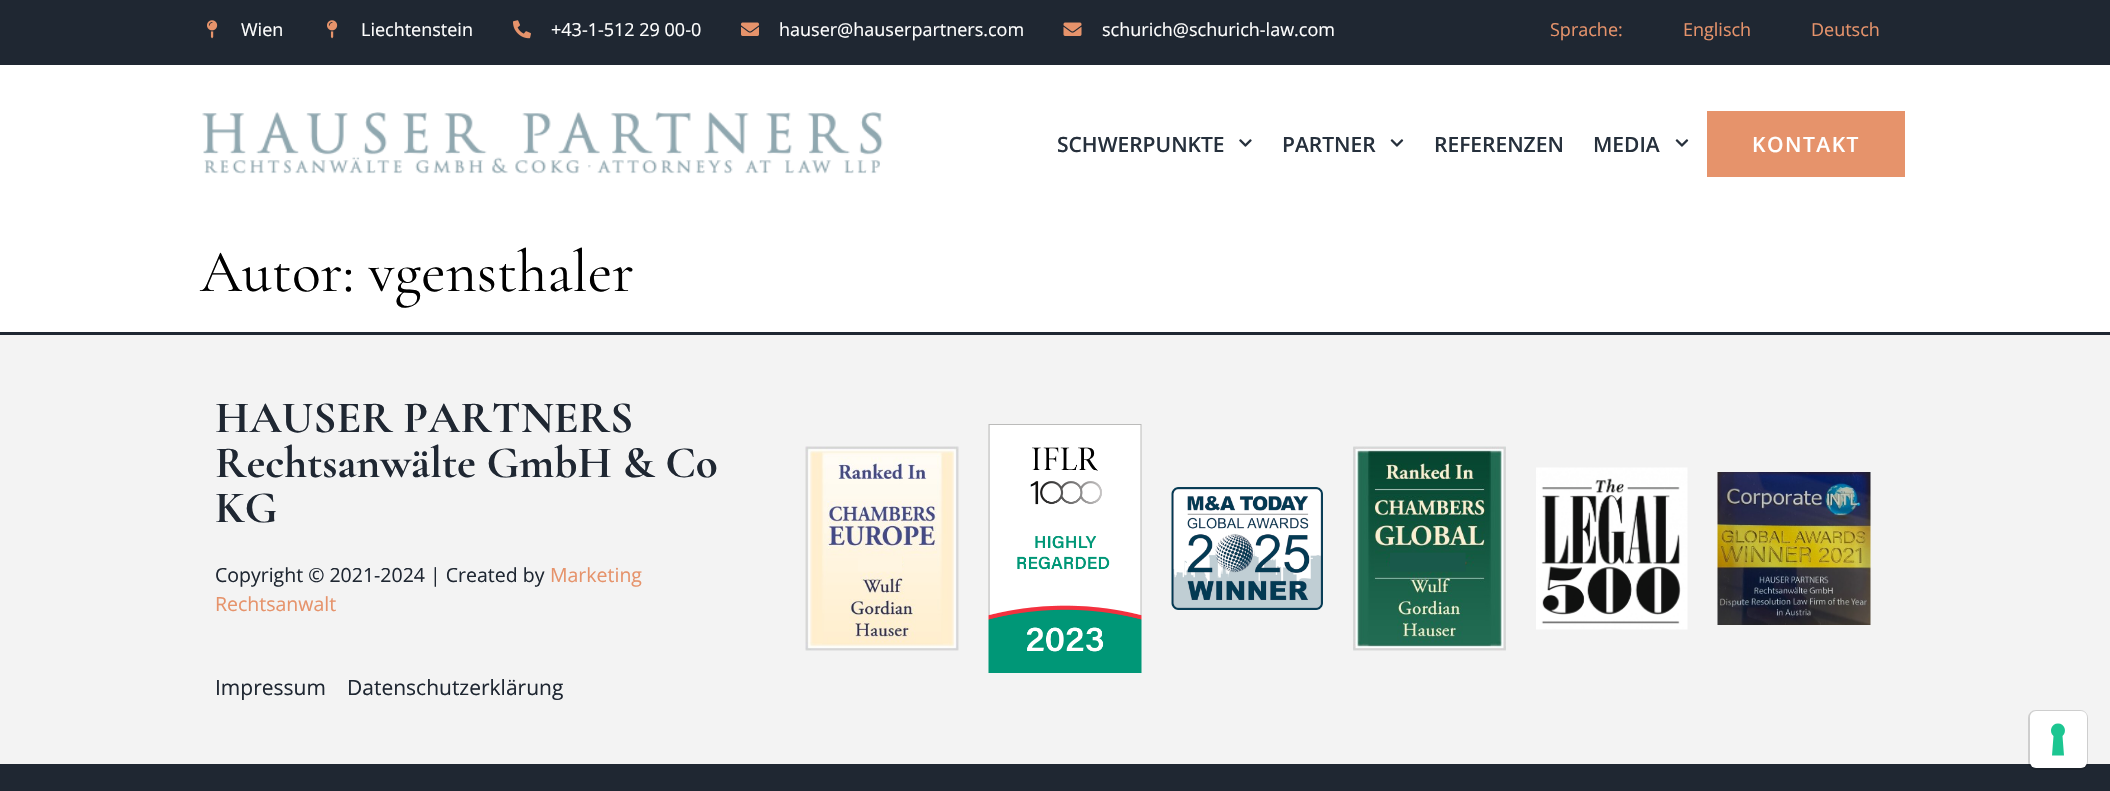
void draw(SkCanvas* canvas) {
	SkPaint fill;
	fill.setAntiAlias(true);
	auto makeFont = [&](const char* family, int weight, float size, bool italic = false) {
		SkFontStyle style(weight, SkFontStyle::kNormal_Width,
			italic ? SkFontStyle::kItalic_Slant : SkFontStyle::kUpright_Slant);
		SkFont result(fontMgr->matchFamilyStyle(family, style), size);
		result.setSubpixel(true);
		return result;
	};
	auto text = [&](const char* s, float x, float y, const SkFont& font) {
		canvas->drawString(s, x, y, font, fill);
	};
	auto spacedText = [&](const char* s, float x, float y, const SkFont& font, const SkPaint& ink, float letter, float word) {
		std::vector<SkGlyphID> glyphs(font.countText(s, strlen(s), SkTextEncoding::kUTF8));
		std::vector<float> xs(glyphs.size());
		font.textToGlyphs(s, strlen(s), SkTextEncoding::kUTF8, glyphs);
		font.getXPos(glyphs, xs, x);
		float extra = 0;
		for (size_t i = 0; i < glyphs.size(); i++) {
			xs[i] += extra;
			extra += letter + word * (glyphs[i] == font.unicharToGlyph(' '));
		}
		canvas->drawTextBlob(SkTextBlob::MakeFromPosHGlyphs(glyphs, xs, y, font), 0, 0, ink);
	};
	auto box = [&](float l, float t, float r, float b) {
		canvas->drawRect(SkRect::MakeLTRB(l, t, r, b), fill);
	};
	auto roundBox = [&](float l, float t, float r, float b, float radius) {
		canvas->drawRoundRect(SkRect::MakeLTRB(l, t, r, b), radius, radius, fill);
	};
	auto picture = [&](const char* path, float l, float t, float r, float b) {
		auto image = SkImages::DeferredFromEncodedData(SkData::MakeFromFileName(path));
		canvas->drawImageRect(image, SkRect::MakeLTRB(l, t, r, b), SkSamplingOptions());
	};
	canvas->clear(0xFFFFFFFF);
	fill.setColor(0xFF1F2732);
	box(0, 0, 2110, 65);
	picture("image0.png", 207, 20, 218, 39);
	picture("image0.png", 327, 20, 338, 39);
	picture("image1.png", 513, 20, 531, 39);
	picture("image2.png", 741, 22, 759, 36);
	picture("image3.png", 1063, 22, 1082, 36);
	picture("image4.png", 202, 112, 883, 174);
	picture("image5.png", 1239, 139, 1252, 147);
	picture("image6.png", 1390, 139, 1404, 147);
	picture("image6.png", 1675, 139, 1689, 147);
	fill.setColor(0xFFE6936B);
	box(1707, 111, 1905, 177);
	fill.setColor(0xFFF3F3F3);
	box(0, 335, 2110, 764);
	fill.setColor(0xFF1F2732);
	box(0, 332, 2110, 335);
	picture("image7.png", 805, 446, 959, 651);
	picture("image8.png", 988, 424, 1142, 673);
	picture("image9.png", 1171, 487, 1323, 610);
	picture("image10.png", 1353, 446, 1506, 651);
	picture("image11.png", 1536, 467, 1688, 630);
	picture("image12.png", 1717, 472, 1871, 625);
	box(0, 764, 2110, 791);
	fill.setStyle(SkPaint::kStroke_Style);
	fill.setStrokeWidth(2);
	fill.setColor(0x26000000);
	canvas->drawRoundRect(SkRect::MakeLTRB(2029, 711, 2087, 769), 7, 7, fill);
	fill.setStyle(SkPaint::kFill_Style);
	fill.setColor(0xFFFFFFFF);
	roundBox(2030, 711, 2087, 768, 6);
	fill.setColor(0xFF1CC691);
	canvas->drawPath(SkPathBuilder(SkPathFillType::kEvenOdd).moveTo(2058, 723.5f).cubicTo(2064.5f, 723.5f, 2067.5f, 731.5f, 2062.5f, 736).lineTo(2064, 755.5f).lineTo(2052, 755.5f).lineTo(2053.5f, 736).cubicTo(2048.5f, 731.5f, 2051.5f, 723.5f, 2058, 723.5f).close().detach(), fill);
	auto font1 = makeFont("Open Sans", 400, 18);
	fill.setColor(0xFFFFFFFF);
	text("Wien", 241, 36, font1);
	text("Liechtenstein", 361, 36, font1);
	text("+43-1-512 29 00-0", 551, 36, font1);
	text("hauser@hauserpartners.com", 779, 36, font1);
	text("schurich@schurich-law.com", 1102, 36, font1);
	fill.setColor(0xFFE6936B);
	text("Sprache:", 1550, 36, font1);
	text("Englisch", 1683, 36, font1);
	text("Deutsch", 1811, 36, font1);
	auto font2 = makeFont("Open Sans", 600, 21);
	fill.setColor(0xFF26303C);
	text("SCHWERPUNKTE", 1057, 152, font2);
	text("PARTNER", 1282, 152, font2);
	text("REFERENZEN", 1434, 152, font2);
	text("MEDIA", 1593, 152, font2);
	fill.setColor(0xFFFFFFFF);
	spacedText("KONTAKT", 1752, 152, font2, fill, 1.5f, 0);
	auto font3 = makeFont("Cormorant Garamond", 400, 60);
	fill.setColor(0xFF000000);
	text("Autor: vgensthaler", 200, 291, font3);
	auto font4 = makeFont("Cormorant Garamond", 700, 45);
	fill.setColor(0xFF1F2732);
	text("HAUSER PARTNERS", 215, 432, font4);
	text("Rechtsanwälte GmbH & Co", 215, 477, font4);
	text("KG", 215, 522, font4);
	auto font5 = makeFont("Open Sans", 400, 19.5f);
	text("Copyright © 2021-2024 | Created by", 215, 582, font5);
	fill.setColor(0xFFE6936B);
	text("Marketing", 550, 582, font5);
	text("Rechtsanwalt", 215, 611, font5);
	auto font6 = makeFont("Open Sans", 400, 21);
	fill.setColor(0xFF1F2732);
	text("Impressum", 215, 695, font6);
	text("Datenschutzerklärung", 347, 695, font6);
}
